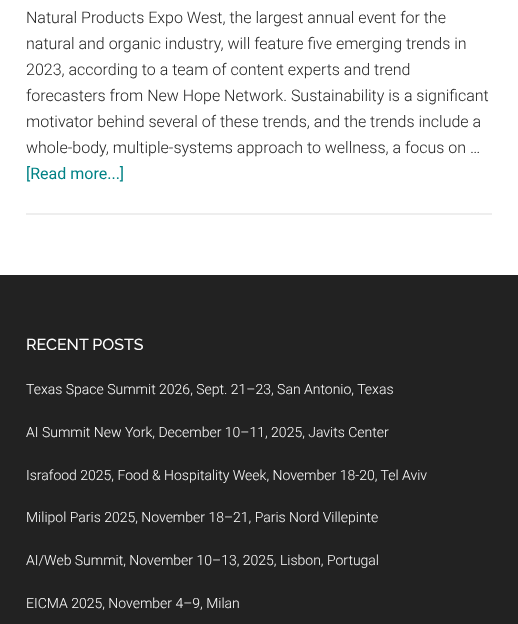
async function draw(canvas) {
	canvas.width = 518;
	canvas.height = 624;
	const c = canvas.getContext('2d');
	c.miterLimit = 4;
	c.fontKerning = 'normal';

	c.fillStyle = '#fff';
	c.fillRect(0, 0, 518, 624);
	c.fillStyle = '#eee';
	c.fillRect(26, 213, 466, 2);
	c.font = '300 16px Roboto';
	c.fillStyle = '#222';
	for (const [text, x, y] of [
		['Natural Products Expo West, the largest annual event for the', 26, 23],
		['natural and organic industry, will feature five emerging trends in', 26, 49],
		['2023, according to a team of content experts and trend', 26, 75],
		['forecasters from New Hope Network. Sustainability is a significant', 26, 101],
		['motivator behind several of these trends, and the trends include a', 26, 127],
		['whole-body, multiple-systems approach to wellness, a focus on …', 26, 153],
	]) {
		c.fillText(text, x, y);
	}
	c.font = '16px Roboto';
	c.fillStyle = '#008285';
	c.fillText('[Read more...]', 26, 179);
	c.fillStyle = '#222';
	c.fillRect(0, 275, 518, 349);
	c.font = '500 16px Raleway';
	c.fillStyle = '#fff';
	c.fillText('RECENT POSTS', 26, 350);
	c.font = '300 14px Roboto';
	for (const [text, x, y] of [
		['Texas Space Summit 2026, Sept. 21–23, San Antonio, Texas', 26, 394],
		['AI Summit New York, December 10–11, 2025, Javits Center', 26, 437],
		['Israfood 2025, Food & Hospitality Week, November 18-20, Tel Aviv', 26, 480],
		['Milipol Paris 2025, November 18–21, Paris Nord Villepinte', 26, 522],
		['AI/Web Summit, November 10–13, 2025, Lisbon, Portugal', 26, 565],
		['EICMA 2025, November 4–9, Milan', 26, 608],
	]) {
		c.fillText(text, x, y);
	}
}

draw(document.querySelector('canvas'));
